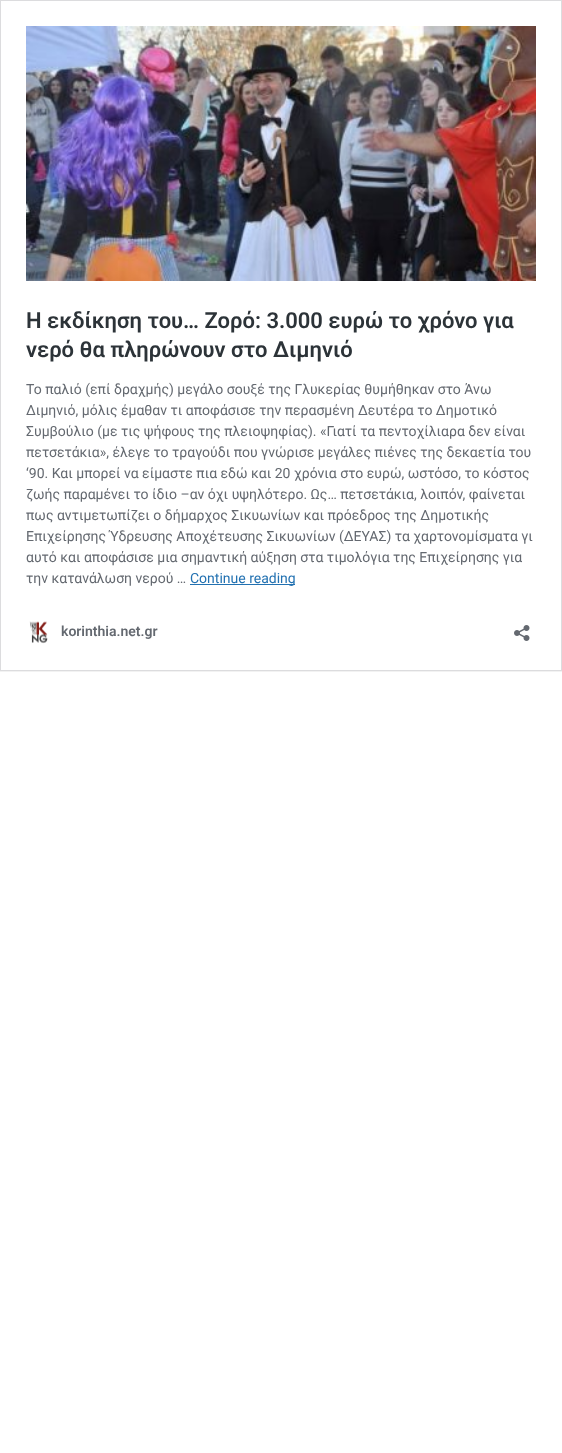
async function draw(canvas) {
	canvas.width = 562;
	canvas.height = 1453;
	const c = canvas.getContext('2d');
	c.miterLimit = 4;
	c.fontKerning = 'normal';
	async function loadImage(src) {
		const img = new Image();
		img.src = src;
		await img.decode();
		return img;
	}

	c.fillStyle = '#fff';
	c.fillRect(0, 0, 562, 1453);
	c.save();
	c.beginPath();
	c.rect(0, 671, 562, 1);
	c.clip();
	c.fillStyle = '#0000000d';
	c.filter = 'blur(0.5px)';
	c.beginPath();
	c.rect(0, 1, 562, 671);
	c.fill();
	c.filter = 'none';
	c.restore();
	c.strokeStyle = '#dcdcde';
	c.strokeRect(0.5, 0.5, 561, 670);
	c.drawImage(await loadImage('img1.png'), 26, 26, 510, 255);
	c.font = '600 22px Roboto';
	c.fillStyle = '#2c3338';
	c.fillText('Η εκδίκηση του… Ζορό: 3.000 ευρώ το χρόνο για', 26, 328);
	c.fillText('νερό θα πληρώνουν στο Διμηνιό', 26, 357);
	c.font = '14px Roboto';
	c.fillStyle = '#646970';
	for (const [text, x, y] of [
		['Το παλιό (επί δραχμής) μεγάλο σουξέ της Γλυκερίας θυμήθηκαν στο Άνω', 26, 394],
		['Διμηνιό, μόλις έμαθαν τι αποφάσισε την περασμένη Δευτέρα το Δημοτικό', 26, 415],
		['Συμβούλιο (με τις ψήφους της πλειοψηφίας). «Γιατί τα πεντοχίλιαρα δεν είναι', 26, 436],
		['πετσετάκια», έλεγε το τραγούδι που γνώρισε μεγάλες πιένες της δεκαετία του', 26, 457],
		['‘90. Και μπορεί να είμαστε πια εδώ και 20 χρόνια στο ευρώ, ωστόσο, το κόστος', 26, 478],
		['ζωής παραμένει το ίδιο –αν όχι υψηλότερο. Ως… πετσετάκια, λοιπόν, φαίνεται', 26, 499],
		['πως αντιμετωπίζει ο δήμαρχος Σικυωνίων και πρόεδρος της Δημοτικής', 26, 520],
		['Επιχείρησης Ύδρευσης Αποχέτευσης Σικυωνίων (ΔΕΥΑΣ) τα χαρτονομίσματα γι', 26, 541],
		['αυτό και αποφάσισε μια σημαντική αύξηση στα τιμολόγια της Επιχείρησης για', 26, 562],
		['την κατανάλωση νερού …', 26, 583],
	]) {
		c.fillText(text, x, y);
	}
	c.fillStyle = '#2271b1';
	c.fillRect(190, 584, 105, 1);
	c.fillText('Continue reading', 190, 583);
	c.drawImage(await loadImage('img2.png'), 29, 621, 19, 23);
	c.font = '600 14px Roboto';
	c.fillStyle = '#646970';
	c.fillText('korinthia.net.gr', 61, 636);
	c.drawImage(await loadImage('img3.png'), 514, 625, 16, 16);
}

draw(document.querySelector('canvas'));
